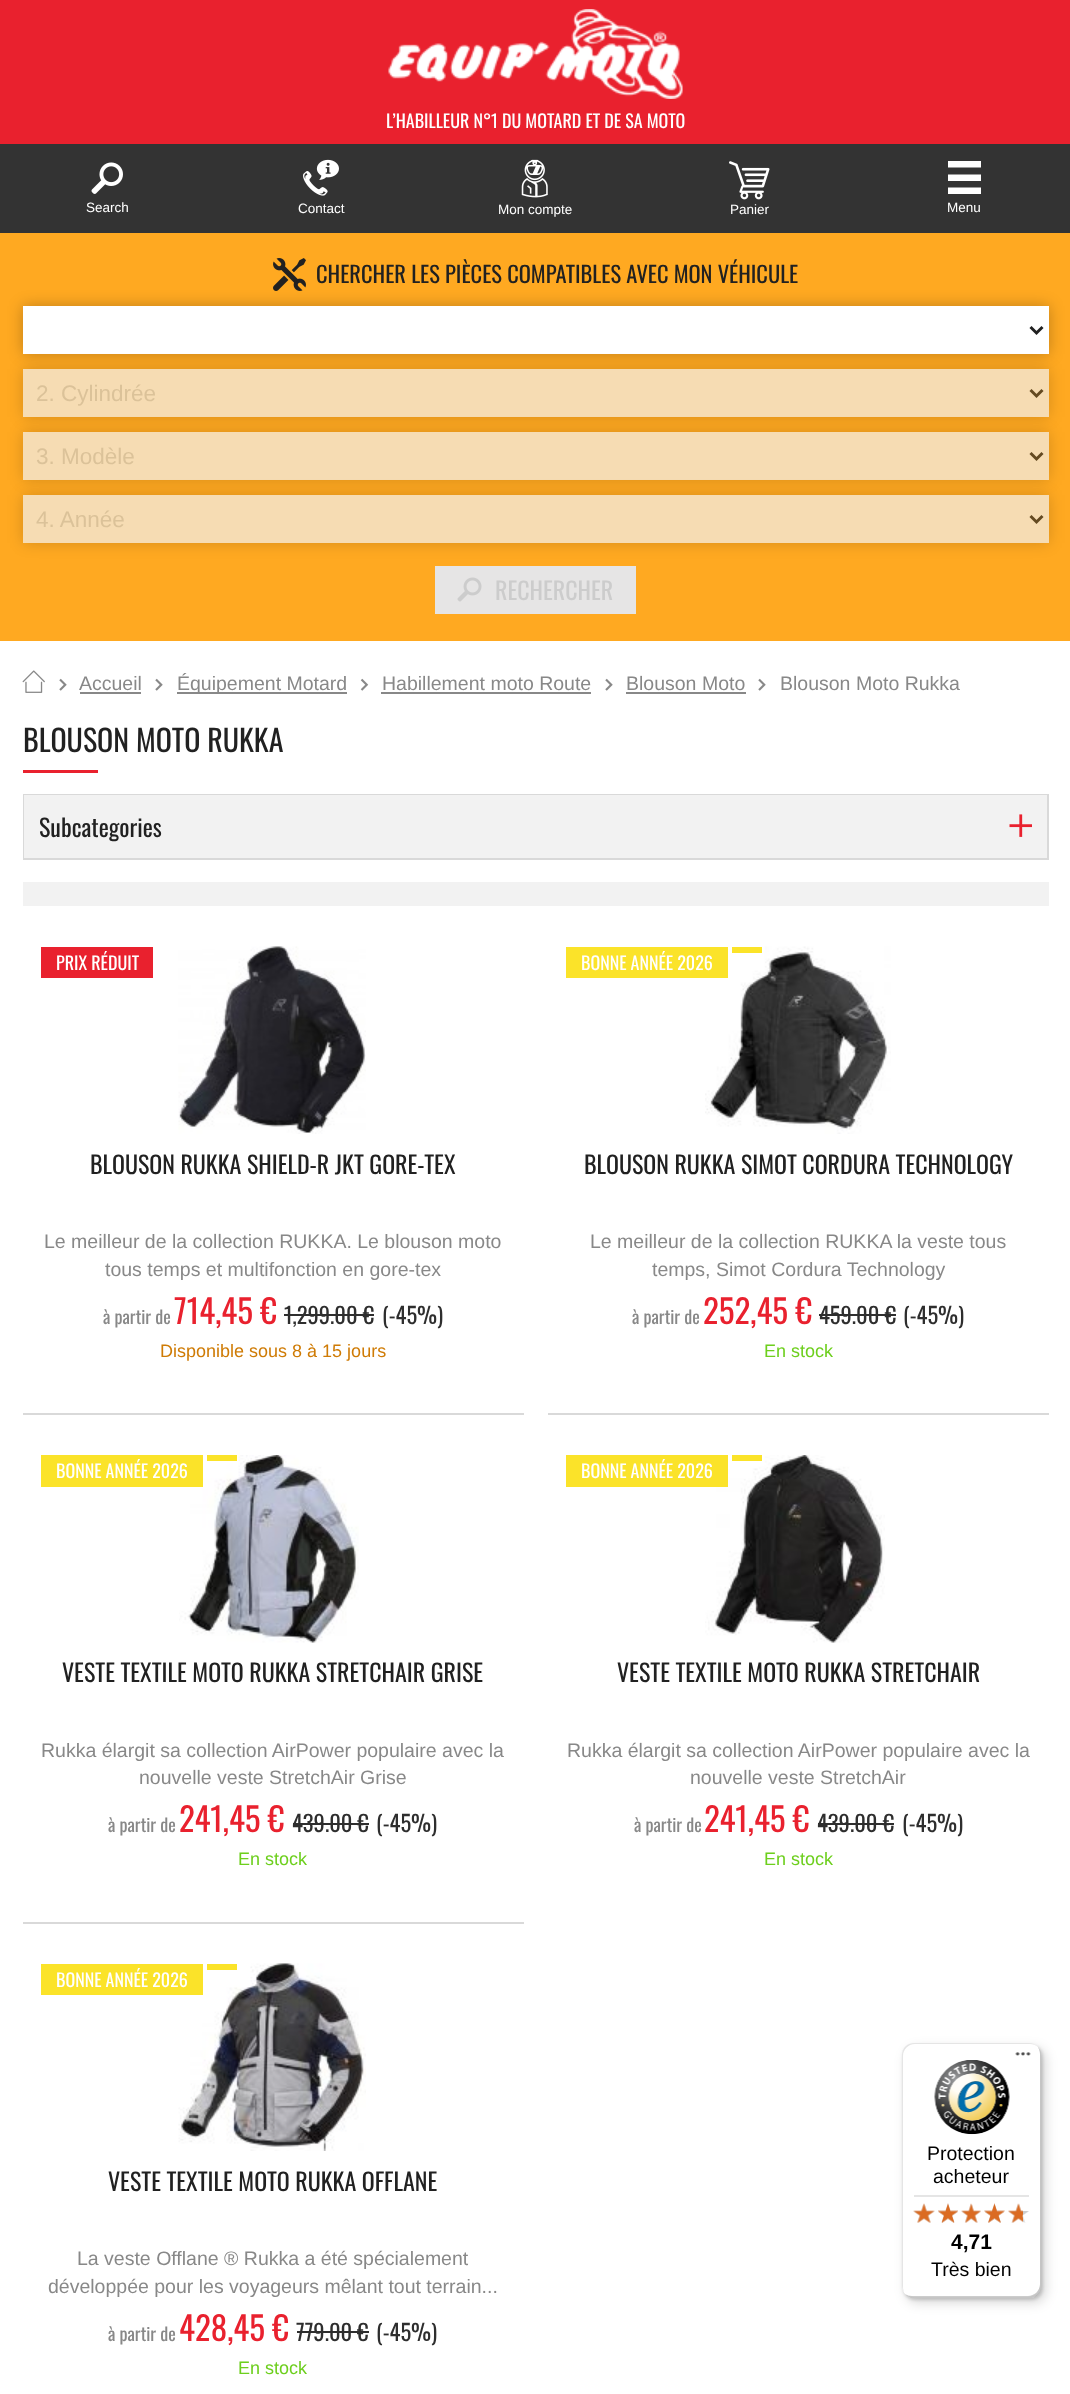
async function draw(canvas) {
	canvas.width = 1070;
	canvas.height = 2394;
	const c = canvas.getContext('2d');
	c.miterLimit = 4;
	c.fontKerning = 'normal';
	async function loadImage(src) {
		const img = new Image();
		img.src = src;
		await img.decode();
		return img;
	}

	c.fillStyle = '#fff';
	c.fillRect(0, 0, 1070, 2394);
	c.fillStyle = '#e9212e';
	c.fillRect(0, 0, 1070, 144);
	c.drawImage(await loadImage('img1.png'), 388, 9, 295, 90);
	c.font = '18px Oswald';
	c.fillStyle = '#fff';
	c.fillText('L’HABILLEUR N°1 DU MOTARD ET DE SA MOTO', 386, 128);
	c.fillStyle = '#333';
	c.fillRect(0, 144, 1070, 89);
	c.drawImage(await loadImage('img2.png'), 91, 162, 32, 32);
	c.font = '13.5px Liberation Sans';
	c.fillStyle = '#fff';
	c.fillText('Search', 86, 212);
	c.drawImage(await loadImage('img3.png'), 303, 159, 36, 37);
	c.fillText('Contact', 298, 213);
	c.drawImage(await loadImage('img4.png'), 521, 159, 27, 39);
	c.fillText('Mon compte', 498, 214);
	c.drawImage(await loadImage('img5.png'), 729, 161, 41, 39);
	c.fillText('Panier', 730, 214);
	c.beginPath();
	c.moveTo(948, 161);
	c.lineTo(981, 161);
	c.lineTo(981, 167.5);
	c.lineTo(948, 167.5);
	c.closePath();
	c.moveTo(948, 187.5);
	c.lineTo(981, 187.5);
	c.lineTo(981, 194);
	c.lineTo(948, 194);
	c.closePath();
	c.moveTo(948, 174.5);
	c.lineTo(981, 174.5);
	c.lineTo(981, 181);
	c.lineTo(948, 181);
	c.closePath();
	c.fill();
	c.fillText('Menu', 947, 212);
	c.fillStyle = '#ffa921';
	c.fillRect(0, 233, 1070, 408);
	c.drawImage(await loadImage('img6.png'), 273, 258, 33, 33);
	c.font = '22.5px Oswald';
	c.fillStyle = '#212121';
	c.fillText('CHERCHER LES PIÈCES COMPATIBLES AVEC MON VÉHICULE', 316, 283);
	c.fillStyle = '#00000040';
	c.filter = 'blur(7.5px)';
	c.beginPath();
	c.rect(23, 306, 1026, 48);
	c.fill();
	c.filter = 'none';
	c.fillStyle = '#fff';
	c.fillRect(23, 306, 1026, 48);
	c.beginPath();
	c.moveTo(1030.5, 327);
	c.lineTo(1036.5, 333);
	c.lineTo(1042.5, 327);
	c.strokeStyle = '#212121';
	c.lineWidth = 3;
	c.stroke();
	c.fillStyle = '#0000002b';
	c.filter = 'blur(7.5px)';
	c.beginPath();
	c.rect(23, 369, 1026, 48);
	c.fill();
	c.filter = 'none';
	c.fillStyle = '#f6dcb3';
	c.fillRect(23, 369, 1026, 48);
	c.beginPath();
	c.moveTo(1030.5, 390);
	c.lineTo(1036.5, 396);
	c.lineTo(1042.5, 390);
	c.strokeStyle = '#644a21';
	c.stroke();
	c.font = '22.5px Liberation Sans';
	c.fillStyle = '#dbc299';
	c.fillText('2. Cylindrée', 36, 401);
	c.fillStyle = '#0000002b';
	c.filter = 'blur(7.5px)';
	c.beginPath();
	c.rect(23, 432, 1026, 48);
	c.fill();
	c.filter = 'none';
	c.fillStyle = '#f6dcb3';
	c.fillRect(23, 432, 1026, 48);
	c.beginPath();
	c.moveTo(1030.5, 453);
	c.lineTo(1036.5, 459);
	c.lineTo(1042.5, 453);
	c.stroke();
	c.fillStyle = '#dbc299';
	c.fillText('3. Modèle', 36, 464);
	c.fillStyle = '#0000002b';
	c.filter = 'blur(7.5px)';
	c.beginPath();
	c.rect(23, 495, 1026, 48);
	c.fill();
	c.filter = 'none';
	c.fillStyle = '#f6dcb3';
	c.fillRect(23, 495, 1026, 48);
	c.beginPath();
	c.moveTo(1030.5, 516);
	c.lineTo(1036.5, 522);
	c.lineTo(1042.5, 516);
	c.stroke();
	c.fillStyle = '#dbc299';
	c.fillText('4. Année', 36, 527);
	c.fillStyle = '#e6e5e5';
	c.fillRect(435, 566, 201, 48);
	c.drawImage(await loadImage('img7.png'), 457, 577, 25, 25);
	c.font = '24px Oswald';
	c.fillStyle = '#ccc';
	c.fillText('RECHERCHER', 495, 600);
	c.drawImage(await loadImage('img8.png'), 22, 670, 23, 23);
	c.drawImage(await loadImage('img9.png'), 59, 678, 8, 13);
	c.font = '19.5px Liberation Sans';
	c.fillStyle = '#888';
	c.fillText('Accueil', 79, 690);
	c.fillRect(80, 692, 61, 2);
	c.drawImage(await loadImage('img9.png'), 155, 678, 8, 13);
	c.fillRect(177, 692, 170, 2);
	c.fillText('Équipement Motard', 177, 690);
	c.drawImage(await loadImage('img10.png'), 360, 678, 9, 13);
	c.fillText('Habillement moto Route', 382, 690);
	c.fillRect(381, 692, 210, 2);
	c.drawImage(await loadImage('img9.png'), 605, 678, 8, 13);
	c.fillText('Blouson Moto', 626, 690);
	c.fillRect(626, 692, 120, 2);
	c.drawImage(await loadImage('img9.png'), 758, 678, 8, 13);
	c.fillText('Blouson Moto Rukka', 780, 690);
	c.font = '30px Oswald';
	c.fillStyle = '#212121';
	c.fillText('BLOUSON MOTO RUKKA', 23, 752);
	for (const [x, y, w, h, color] of [
		[23, 770, 75, 3, '#e9212e'],
		[23, 794, 1026, 1, '#d9d9d9'],
		[1047, 794, 2, 66, '#d9d9d9'],
		[23, 794, 2, 66, '#d9d9d9'],
		[24, 795, 1023, 63, '#f2f2f2'],
		[24, 858, 1023, 2, '#d9d9d9'],
	]) {
		c.fillStyle = color;
		c.fillRect(x, y, w, h);
	}
	c.font = '24px Oswald';
	c.fillStyle = '#212121';
	c.fillText('Subcategories', 39, 837);
	c.drawImage(await loadImage('img11.png'), 1009, 814, 23, 23);
	for (const [x, y, w, h, color] of [
		[23, 882, 1026, 24, '#f2f2f2'],
		[23, 1413, 501, 2, '#d9d9d9'],
		[41, 947, 112, 31, '#e9212e'],
	]) {
		c.fillStyle = color;
		c.fillRect(x, y, w, h);
	}
	c.font = '18px Oswald';
	c.fillStyle = '#fff';
	c.fillText('PRIX RÉDUIT', 56, 970);
	c.drawImage(await loadImage('img12.png'), 178, 946, 188, 188);
	c.font = '24px Oswald';
	c.fillStyle = '#212121';
	c.fillText('BLOUSON RUKKA SHIELD-R JKT GORE-TEX', 90, 1174);
	c.font = '19.5px Liberation Sans';
	c.fillStyle = '#888';
	c.fillText('Le meilleur de la collection RUKKA. Le blouson moto', 44, 1248);
	c.fillText('tous temps et multifonction en gore-tex', 105, 1276);
	c.font = '18px Oswald';
	c.fillText('à partir de', 103, 1324);
	c.font = '33px Oswald';
	c.fillStyle = '#e9212e';
	c.fillText('714,45 €', 174, 1324);
	c.font = '22.5px Oswald';
	c.fillStyle = '#2e2e2e';
	c.fillText('1,299.00', 284, 1324);
	c.fillRect(284, 1314, 79, 2);
	c.fillText('€', 363, 1324);
	c.fillRect(363, 1314, 11, 2);
	c.fillText('(-45%)', 382, 1324);
	c.font = '18px Liberation Sans';
	c.fillStyle = '#cf7b05';
	c.fillText('Disponible sous 8 à 15 jours', 160, 1357);
	c.fillStyle = '#d9d9d9';
	c.fillRect(548, 1413, 501, 2);
	c.drawImage(await loadImage('img13.png'), 705, 946, 186, 188);
	c.fillStyle = '#fbe329';
	c.fillRect(732, 947, 30, 6);
	c.fillRect(566, 947, 162, 31);
	c.font = '18px Oswald';
	c.fillStyle = '#fff';
	c.fillText('BONNE ANNÉE 2026', 581, 970);
	c.font = '24px Oswald';
	c.fillStyle = '#212121';
	c.fillText('BLOUSON RUKKA SIMOT CORDURA TECHNOLOGY', 584, 1174);
	c.font = '19.5px Liberation Sans';
	c.fillStyle = '#888';
	c.fillText('Le meilleur de la collection RUKKA la veste tous', 590, 1248);
	c.fillText('temps, Simot Cordura Technology', 652, 1276);
	c.font = '18px Oswald';
	c.fillText('à partir de', 632, 1324);
	c.font = '33px Oswald';
	c.fillStyle = '#e9212e';
	c.fillText('252,45 €', 703, 1324);
	c.font = '22.5px Oswald';
	c.fillStyle = '#2e2e2e';
	c.fillText('459.00', 819, 1324);
	c.fillRect(819, 1314, 66, 2);
	c.fillText('€', 885, 1324);
	c.fillRect(885, 1314, 11, 2);
	c.fillText('(-45%)', 903, 1324);
	c.font = '18px Liberation Sans';
	c.fillStyle = '#6dcf1d';
	c.fillText('En stock', 764, 1357);
	c.fillStyle = '#d9d9d9';
	c.fillRect(23, 1922, 501, 2);
	c.drawImage(await loadImage('img14.png'), 179, 1455, 180, 188);
	c.fillStyle = '#fbe329';
	c.fillRect(207, 1455, 30, 6);
	c.fillRect(41, 1455, 162, 32);
	c.font = '18px Oswald';
	c.fillStyle = '#fff';
	c.fillText('BONNE ANNÉE 2026', 56, 1478);
	c.font = '24px Oswald';
	c.fillStyle = '#212121';
	c.fillText('VESTE TEXTILE MOTO RUKKA STRETCHAIR GRISE', 62, 1682);
	c.font = '19.5px Liberation Sans';
	c.fillStyle = '#888';
	c.fillText('Rukka élargit sa collection AirPower populaire avec la', 41, 1757);
	c.fillText('nouvelle veste StretchAir Grise', 139, 1784);
	c.font = '18px Oswald';
	c.fillText('à partir de', 108, 1832);
	c.font = '33px Oswald';
	c.fillStyle = '#e9212e';
	c.fillText('241,45 €', 179, 1832);
	c.font = '22.5px Oswald';
	c.fillStyle = '#2e2e2e';
	c.fillText('439.00 €', 292, 1832);
	c.fillRect(293, 1823, 76, 2);
	c.fillText('(-45%)', 376, 1832);
	c.font = '18px Liberation Sans';
	c.fillStyle = '#6dcf1d';
	c.fillText('En stock', 238, 1865);
	c.drawImage(await loadImage('img15.png'), 705, 1455, 180, 188);
	c.fillStyle = '#fbe329';
	c.fillRect(732, 1455, 30, 6);
	c.fillRect(566, 1455, 162, 32);
	c.font = '18px Oswald';
	c.fillStyle = '#fff';
	c.fillText('BONNE ANNÉE 2026', 581, 1478);
	c.font = '24px Oswald';
	c.fillStyle = '#212121';
	c.fillText('VESTE TEXTILE MOTO RUKKA STRETCHAIR', 617, 1682);
	c.font = '19.5px Liberation Sans';
	c.fillStyle = '#888';
	c.fillText('Rukka élargit sa collection AirPower populaire avec la', 567, 1757);
	c.fillText('nouvelle veste StretchAir', 690, 1784);
	c.font = '18px Oswald';
	c.fillText('à partir de', 634, 1832);
	c.font = '33px Oswald';
	c.fillStyle = '#e9212e';
	c.fillText('241,45 €', 704, 1832);
	c.font = '22.5px Oswald';
	c.fillStyle = '#2e2e2e';
	c.fillText('439.00', 817, 1832);
	c.fillRect(818, 1823, 66, 2);
	c.fillText('€', 883, 1832);
	c.fillRect(884, 1823, 10, 2);
	c.fillText('(-45%)', 902, 1832);
	c.font = '18px Liberation Sans';
	c.fillStyle = '#6dcf1d';
	c.fillText('En stock', 764, 1865);
	c.drawImage(await loadImage('img16.png'), 178, 1963, 188, 188);
	c.fillStyle = '#fbe329';
	c.fillRect(207, 1964, 30, 6);
	c.fillRect(41, 1964, 162, 31);
	c.font = '18px Oswald';
	c.fillStyle = '#fff';
	c.fillText('BONNE ANNÉE 2026', 56, 1987);
	c.font = '24px Oswald';
	c.fillStyle = '#212121';
	c.fillText('VESTE TEXTILE MOTO RUKKA OFFLANE', 108, 2191);
	c.font = '19.5px Liberation Sans';
	c.fillStyle = '#888';
	c.fillText('La veste Offlane ® Rukka a été spécialement', 77, 2265);
	c.fillText('développée pour les voyageurs mêlant tout terrain...', 48, 2293);
	c.font = '18px Oswald';
	c.fillText('à partir de', 108, 2341);
	c.font = '33px Oswald';
	c.fillStyle = '#e9212e';
	c.fillText('428,45 €', 179, 2341);
	c.font = '22.5px Oswald';
	c.fillStyle = '#2e2e2e';
	c.fillText('779.00 €', 296, 2341);
	c.fillRect(297, 2331, 72, 2);
	c.fillText('(-45%)', 376, 2341);
	c.font = '18px Liberation Sans';
	c.fillStyle = '#6dcf1d';
	c.fillText('En stock', 238, 2374);
	c.fillStyle = '#00000026';
	c.filter = 'blur(6px)';
	c.beginPath();
	c.roundRect(906, 2048, 140, 255, 12);
	c.fill();
	c.filter = 'none';
	c.filter = 'blur(1.5px)';
	c.beginPath();
	c.roundRect(903, 2045, 140, 255, 12);
	c.fill();
	c.filter = 'none';
	c.fillStyle = '#fff';
	c.beginPath();
	c.roundRect(902, 2043, 139, 255, 12);
	c.fill();
	c.fillStyle = '#e5e5e5';
	c.beginPath();
	c.moveTo(915, 2044);
	c.lineTo(1030, 2044);
	c.bezierCurveTo(1033, 2044, 1036, 2045, 1038, 2047);
	c.bezierCurveTo(1036, 2045, 1033, 2043, 1029, 2043);
	c.lineTo(914, 2043);
	c.bezierCurveTo(907, 2043, 902, 2048, 902, 2055);
	c.lineTo(902, 2286);
	c.bezierCurveTo(902, 2288, 903, 2291, 904, 2293);
	c.lineTo(903, 2288);
	c.lineTo(903, 2056);
	c.bezierCurveTo(903, 2050, 908, 2044, 915, 2044);
	c.closePath();
	c.fill();
	c.fillStyle = '#00000033';
	c.beginPath();
	c.moveTo(905, 2294);
	c.bezierCurveTo(907, 2296, 910, 2298, 914, 2298);
	c.lineTo(1029, 2298);
	c.bezierCurveTo(1036, 2298, 1041, 2293, 1041, 2286);
	c.lineTo(1041, 2055);
	c.bezierCurveTo(1041, 2051, 1039, 2048, 1037, 2046);
	c.bezierCurveTo(1039, 2048, 1040, 2051, 1040, 2054);
	c.lineTo(1040, 2284);
	c.bezierCurveTo(1040, 2291, 1034, 2296, 1028, 2296);
	c.lineTo(912, 2296);
	c.bezierCurveTo(909, 2296, 907, 2295, 905, 2294);
	c.closePath();
	c.fill();
	c.fillStyle = '#32323233';
	c.beginPath();
	c.moveTo(906, 2295);
	c.bezierCurveTo(908, 2297, 911, 2298, 914, 2298);
	c.lineTo(1029, 2298);
	c.bezierCurveTo(1036, 2298, 1041, 2293, 1041, 2286);
	c.lineTo(1041, 2055);
	c.bezierCurveTo(1041, 2052, 1040, 2049, 1038, 2047);
	c.bezierCurveTo(1039, 2049, 1040, 2051, 1040, 2054);
	c.lineTo(1040, 2285);
	c.bezierCurveTo(1040, 2292, 1035, 2297, 1028, 2297);
	c.lineTo(913, 2297);
	c.bezierCurveTo(910, 2297, 908, 2296, 906, 2295);
	c.closePath();
	c.fill();
	c.fillStyle = '#ffffff4d';
	c.beginPath();
	c.moveTo(906, 2295);
	c.bezierCurveTo(908, 2297, 911, 2298, 914, 2298);
	c.lineTo(1029, 2298);
	c.bezierCurveTo(1036, 2298, 1041, 2293, 1041, 2286);
	c.lineTo(1041, 2055);
	c.bezierCurveTo(1041, 2051, 1039, 2048, 1037, 2046);
	c.bezierCurveTo(1039, 2048, 1040, 2051, 1040, 2054);
	c.lineTo(1040, 2285);
	c.bezierCurveTo(1040, 2292, 1035, 2297, 1028, 2297);
	c.lineTo(913, 2297);
	c.bezierCurveTo(910, 2297, 908, 2296, 906, 2295);
	c.closePath();
	c.fill();
	c.drawImage(await loadImage('img17.png'), 1015, 2052, 16, 4);
	c.drawImage(await loadImage('img18.png'), 934, 2060, 76, 75);
	c.font = '19.5px Liberation Sans';
	c.fillStyle = '#000';
	c.fillText('Protection', 927, 2160);
	c.fillText('acheteur', 933, 2183);
	c.fillStyle = '#e5e5e5';
	c.fillRect(914, 2195, 115, 2);
	c.drawImage(await loadImage('img19.png'), 913, 2204, 22, 19);
	c.drawImage(await loadImage('img20.png'), 938, 2203, 20, 20);
	c.drawImage(await loadImage('img21.png'), 961, 2204, 20, 19);
	c.drawImage(await loadImage('img22.png'), 984, 2203, 21, 20);
	c.drawImage(await loadImage('img23.png'), 1008, 2204, 21, 19);
	c.drawImage(await loadImage('img24.png'), 913, 2203, 22, 20);
	c.drawImage(await loadImage('img25.png'), 938, 2203, 20, 20);
	c.drawImage(await loadImage('img26.png'), 961, 2203, 20, 20);
	c.drawImage(await loadImage('img27.png'), 984, 2203, 21, 20);
	c.drawImage(await loadImage('img28.png'), 1008, 2203, 15, 20);
	c.font = 'bold 21px Liberation Sans';
	c.fillStyle = '#000';
	c.fillText('4,71', 951, 2249);
	c.font = '19.5px Liberation Sans';
	c.fillText('Très bien', 931, 2276);
}

draw(document.querySelector('canvas'));
